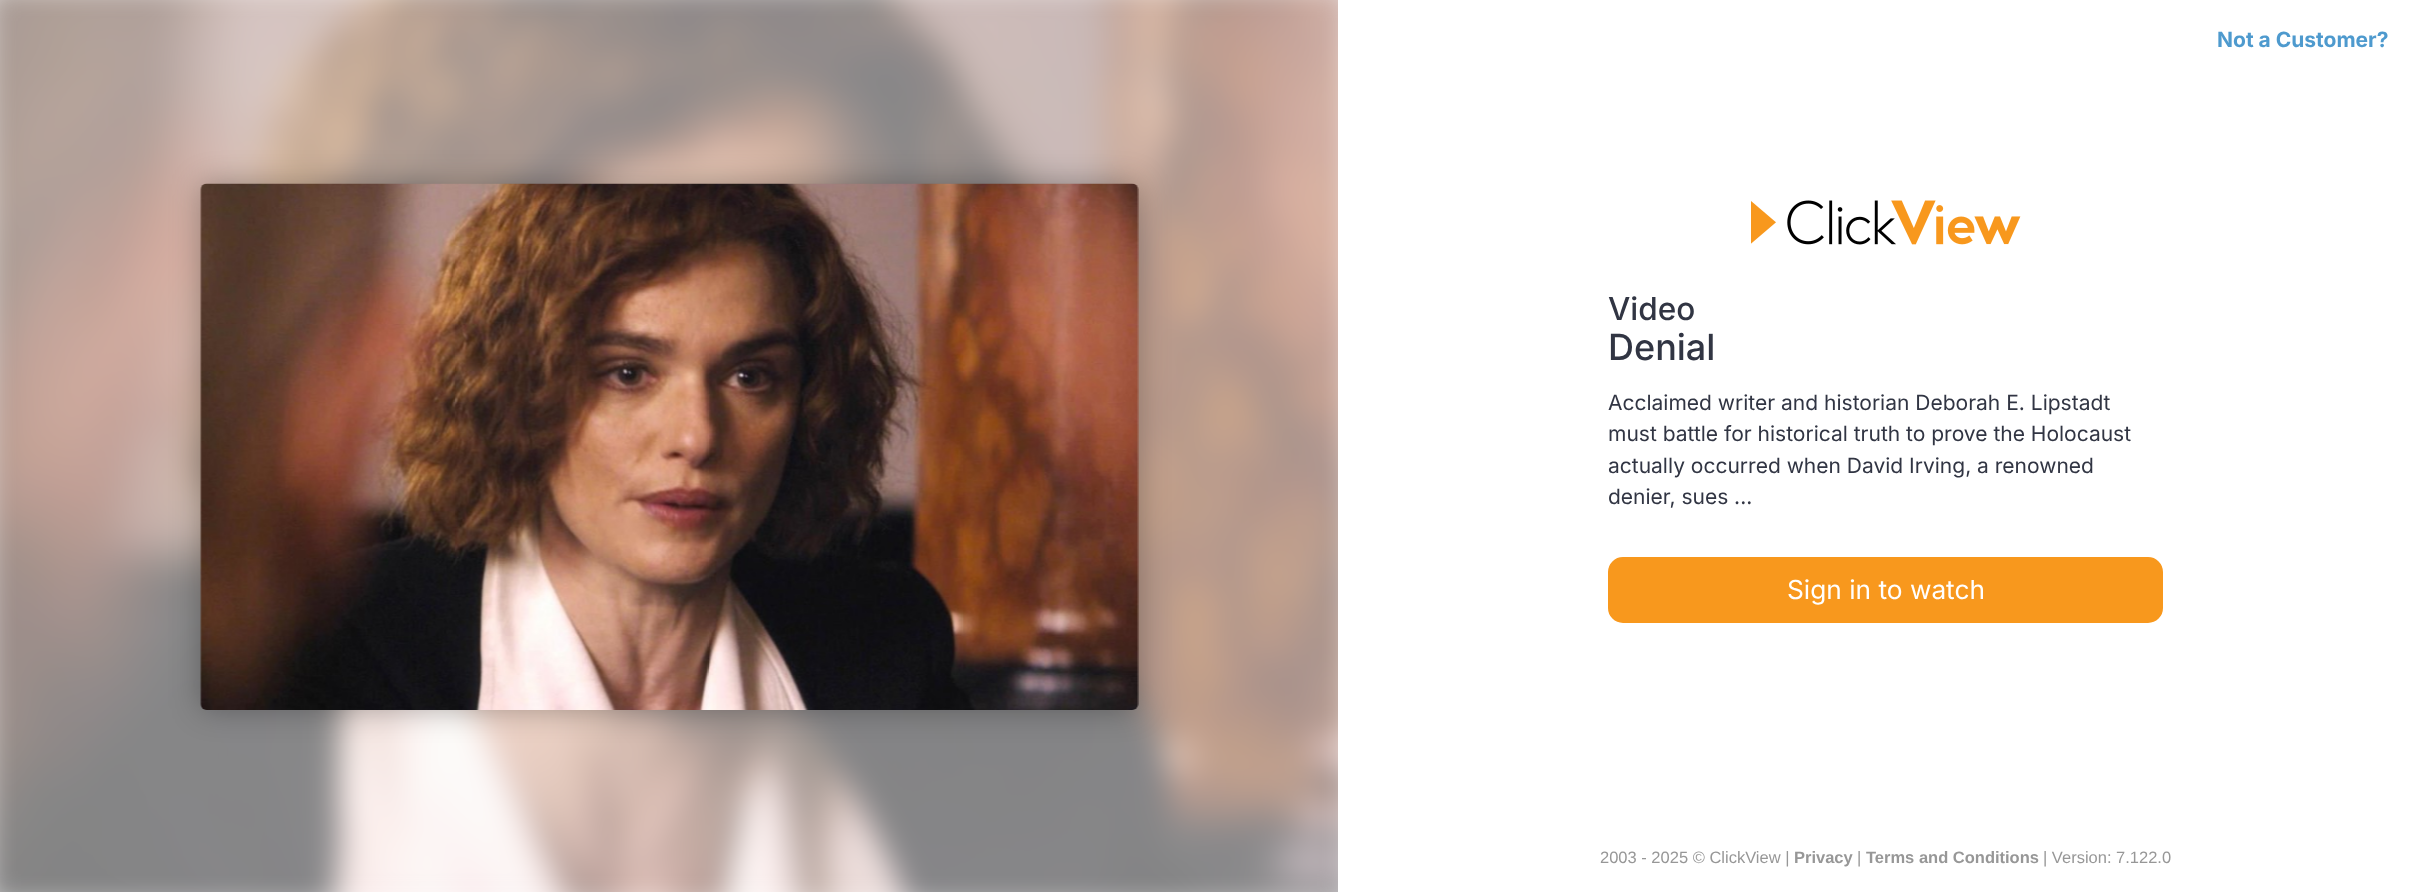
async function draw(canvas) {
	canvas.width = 2432;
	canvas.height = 892;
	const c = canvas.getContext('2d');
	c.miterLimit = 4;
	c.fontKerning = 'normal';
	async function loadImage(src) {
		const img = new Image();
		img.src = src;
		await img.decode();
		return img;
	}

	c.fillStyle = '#fafafa';
	c.fillRect(0, 0, 2432, 892);
	c.drawImage(await loadImage('img1.png'), 0, 0, 1338, 892);
	c.fillStyle = '#0000004d';
	c.filter = 'blur(15px)';
	c.beginPath();
	c.roundRect(201, 183, 938, 527, 6);
	c.fill();
	c.filter = 'none';
	c.drawImage(await loadImage('img2.png'), 200, 183, 939, 527);
	c.fillStyle = '#fff';
	c.fillRect(1338, 0, 1094, 892);
	c.font = 'bold 21px Inter';
	c.fillStyle = '#4e9ace';
	c.fillText('Not a Customer?', 2217, 47);
	c.drawImage(await loadImage('img3.png'), 1751, 200, 270, 45);
	c.font = '500 31.5px Inter';
	c.fillStyle = '#313543';
	c.fillText('Video', 1608, 320);
	c.font = '500 36px Inter';
	c.fillText('Denial', 1608, 360);
	c.font = '21px Inter';
	for (const [text, x, y] of [
		['Acclaimed writer and historian Deborah E. Lipstadt', 1608, 410],
		['must battle for historical truth to prove the Holocaust', 1608, 441],
		['actually occurred when David Irving, a renowned', 1608, 473],
		['denier, sues ...', 1608, 504],
	]) {
		c.fillText(text, x, y);
	}
	c.fillStyle = '#f8981d';
	c.beginPath();
	c.roundRect(1609, 558, 553, 64, 14);
	c.fill();
	c.strokeStyle = '#f8981d';
	c.lineWidth = 2;
	c.stroke();
	c.font = '26.25px Inter';
	c.fillStyle = '#fff';
	c.fillText('Sign in to watch', 1787, 599);
	c.font = '16.5px Liberation Sans';
	c.fillStyle = '#979797';
	c.fillText('2003 - 2025 © ClickView |', 1600, 863);
	c.font = 'bold 16.5px Liberation Sans';
	c.fillText('Privacy', 1794, 863);
	c.font = '16.5px Liberation Sans';
	c.fillText('|', 1857, 863);
	c.font = 'bold 16.5px Liberation Sans';
	c.fillText('Terms and Conditions', 1866, 863);
	c.font = '16.5px Liberation Sans';
	c.fillText('| Version: 7.122.0', 2043, 863);
}

draw(document.querySelector('canvas'));
